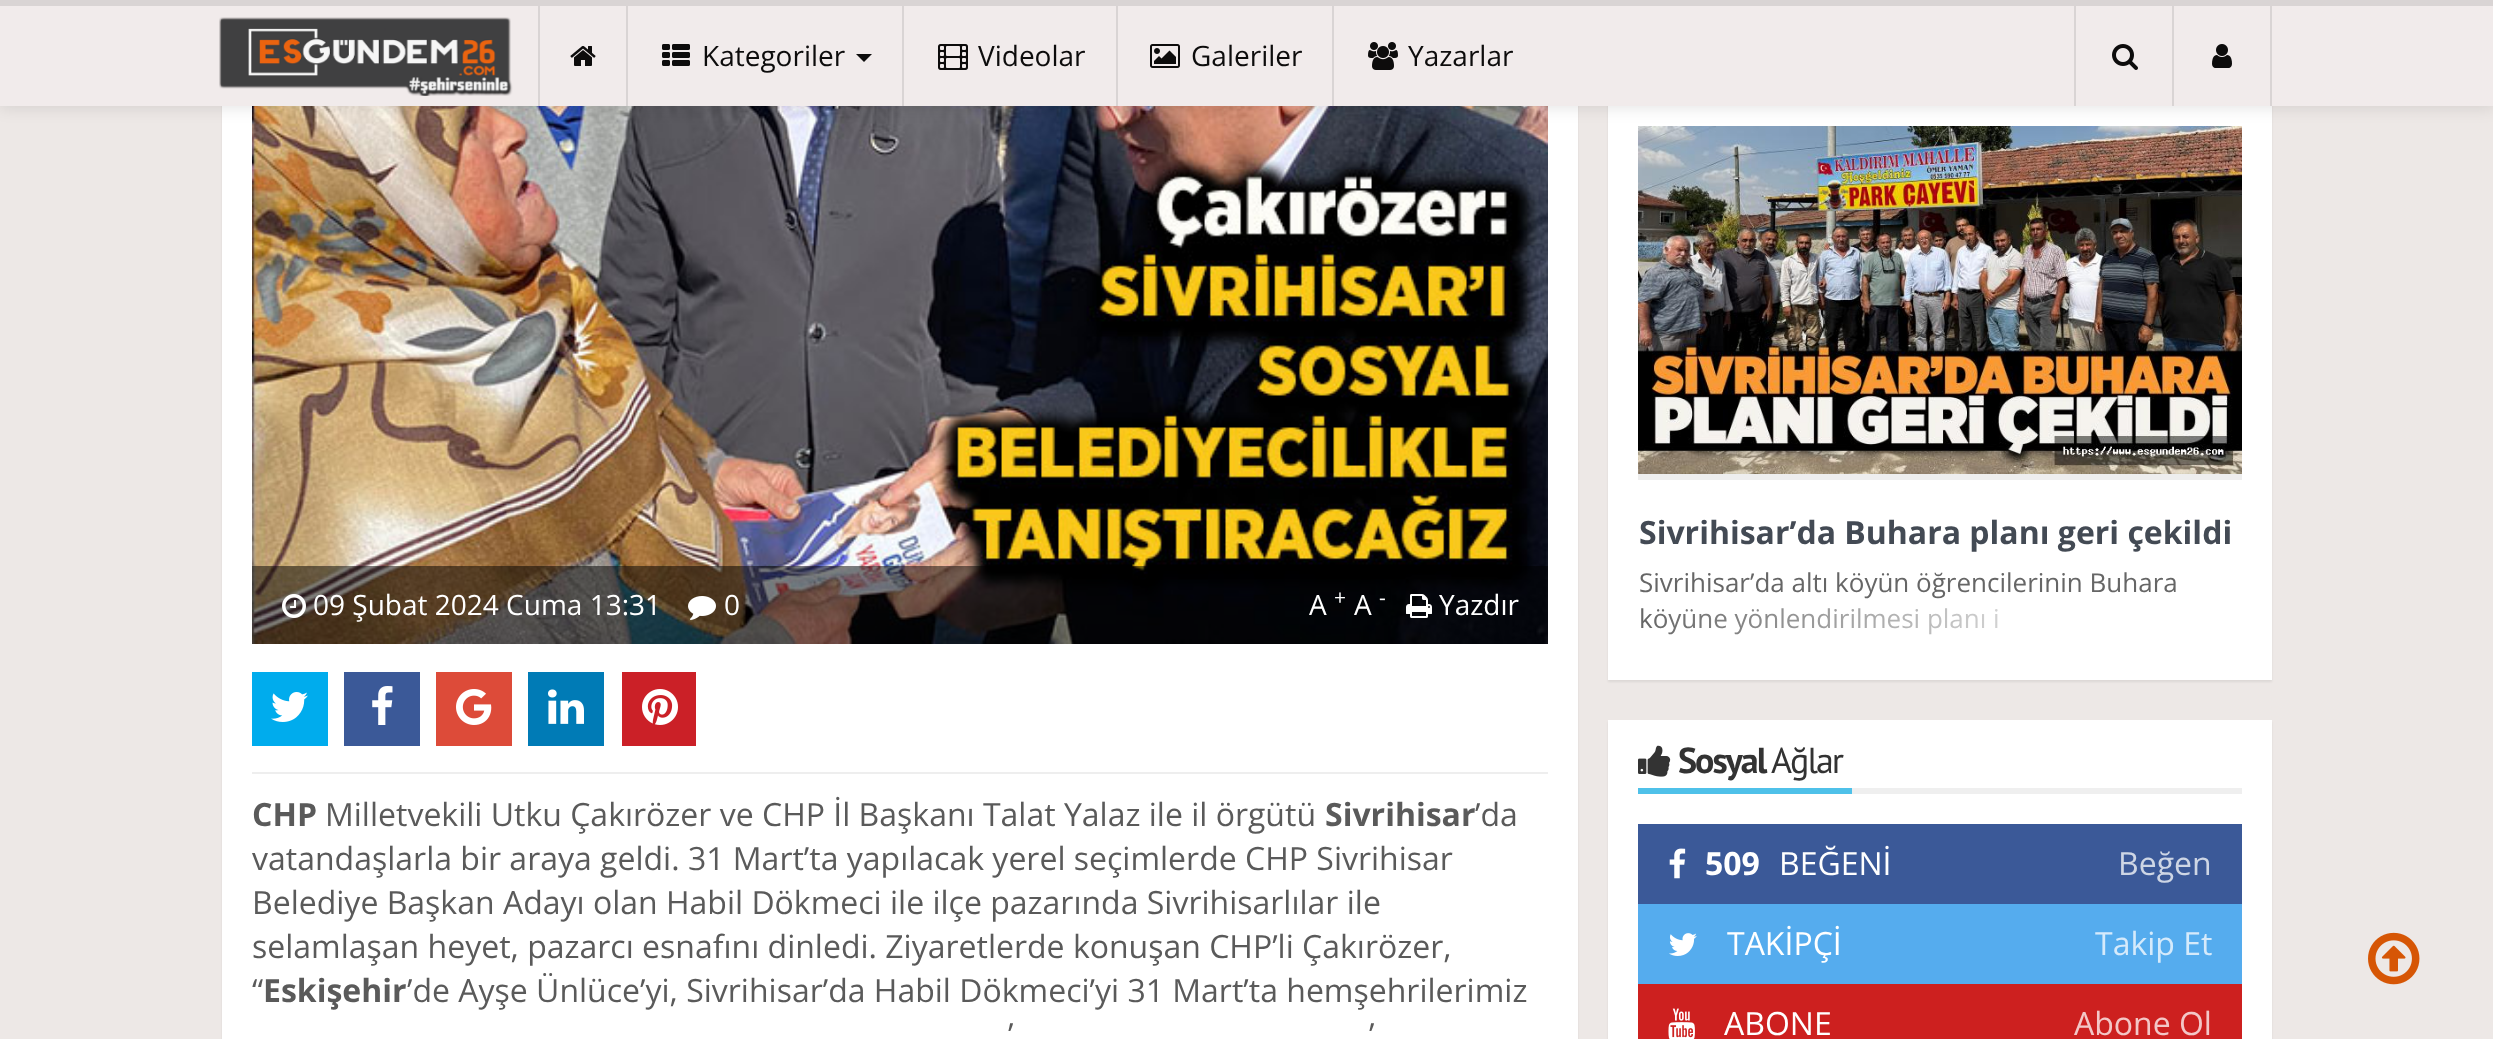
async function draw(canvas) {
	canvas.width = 2493;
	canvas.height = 1039;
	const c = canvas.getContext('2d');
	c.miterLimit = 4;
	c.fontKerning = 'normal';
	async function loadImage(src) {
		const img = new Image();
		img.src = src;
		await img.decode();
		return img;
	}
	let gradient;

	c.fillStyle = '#ede8e6';
	c.fillRect(0, 0, 2493, 1039);
	c.fillStyle = '#00000012';
	c.filter = 'blur(1px)';
	c.beginPath();
	c.rect(222, -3, 1356, 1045);
	c.fill();
	c.filter = 'none';
	c.fillStyle = '#fff';
	c.fillRect(222, 106, 1356, 933);
	c.drawImage(await loadImage('img9.png'), 252, 106, 1296, 538);
	c.fillStyle = '#00000012';
	c.filter = 'blur(1px)';
	c.beginPath();
	c.rect(1608, 24, 664, 658);
	c.fill();
	c.filter = 'none';
	c.fillStyle = '#fff';
	c.fillRect(1608, 106, 664, 574);
	c.drawImage(await loadImage('img18.png'), 1638, 126, 604, 348);
	c.fillStyle = '#0000001a';
	c.filter = 'blur(8px)';
	c.beginPath();
	c.rect(0, 2, 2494, 106);
	c.fill();
	c.filter = 'none';
	c.fillStyle = '#f1ebeb';
	c.fillRect(0, 6, 2493, 100);
	c.fillStyle = '#d9d4d4';
	c.fillRect(0, 0, 2493, 6);
	c.drawImage(await loadImage('img1.png'), 219, 17, 294, 79);
	c.fillRect(538, 6, 2, 100);
	c.drawImage(await loadImage('img2.png'), 570, 46, 26, 20);
	c.fillRect(626, 6, 2, 100);
	c.drawImage(await loadImage('img3.png'), 662, 44, 28, 22);
	c.font = '28px Open Sans';
	c.fillStyle = '#0d0c0c';
	c.fillText('Kategoriler', 702, 66);
	c.beginPath();
	c.moveTo(856, 54);
	c.lineTo(872, 54);
	c.lineTo(864, 62);
	c.closePath();
	c.fill();
	c.fillStyle = '#d9d4d4';
	c.fillRect(902, 6, 2, 100);
	c.drawImage(await loadImage('img4.png'), 938, 44, 30, 26);
	c.fillStyle = '#0d0c0c';
	c.fillText('Videolar', 978, 66);
	c.fillStyle = '#d9d4d4';
	c.fillRect(1116, 6, 2, 100);
	c.drawImage(await loadImage('img5.png'), 1150, 44, 30, 24);
	c.fillStyle = '#0d0c0c';
	c.fillText('Galeriler', 1191, 66);
	c.fillStyle = '#d9d4d4';
	c.fillRect(1332, 6, 2, 100);
	c.drawImage(await loadImage('img6.png'), 1368, 42, 30, 28);
	c.fillStyle = '#0d0c0c';
	c.fillText('Yazarlar', 1408, 66);
	c.fillStyle = '#d9d4d4';
	c.fillRect(2074, 6, 2, 100);
	c.drawImage(await loadImage('img7.png'), 2112, 44, 26, 26);
	c.fillRect(2270, 6, 2, 100);
	c.fillRect(2172, 6, 2, 100);
	c.drawImage(await loadImage('img8.png'), 2212, 44, 20, 24);
	c.fillStyle = '#00000080';
	c.fillRect(252, 566, 1296, 78);
	c.drawImage(await loadImage('img10.png'), 282, 594, 24, 24);
	c.fillStyle = '#fff';
	c.fillText('09 Şubat 2024 Cuma 13:31', 313, 615);
	c.drawImage(await loadImage('img11.png'), 688, 596, 28, 24);
	c.fillText('0', 724, 615);
	c.fillText('A', 1309, 615);
	c.font = '21px Open Sans';
	c.fillText('+', 1334, 605);
	c.font = '28px Open Sans';
	c.fillText('A', 1354, 615);
	c.font = '21px Open Sans';
	c.fillText('-', 1379, 605);
	c.drawImage(await loadImage('img12.png'), 1406, 594, 26, 24);
	c.font = '28px Open Sans';
	c.fillText('Yazdır', 1439, 615);
	c.fillStyle = '#00aced';
	c.fillRect(252, 672, 76, 74);
	c.drawImage(await loadImage('img13.png'), 271, 692, 37, 30);
	c.fillStyle = '#3b5998';
	c.fillRect(344, 672, 76, 74);
	c.drawImage(await loadImage('img14.png'), 372, 686, 21, 39);
	c.fillStyle = '#dd4b39';
	c.fillRect(436, 672, 76, 74);
	c.drawImage(await loadImage('img15.png'), 456, 689, 36, 36);
	c.fillStyle = '#007bb6';
	c.fillRect(528, 672, 76, 74);
	c.drawImage(await loadImage('img16.png'), 548, 689, 36, 35);
	c.fillStyle = '#cb2027';
	c.fillRect(622, 672, 74, 74);
	c.drawImage(await loadImage('img17.png'), 642, 689, 36, 36);
	c.fillStyle = '#eee';
	c.fillRect(252, 772, 1296, 2);
	c.font = 'bold 32px Open Sans';
	c.fillStyle = '#5a5a5a';
	c.fillText('CHP', 252, 826);
	c.font = '32px Open Sans';
	c.fillText('Milletvekili Utku Çakırözer ve CHP İl Başkanı Talat Yalaz ile il örgütü', 325, 826);
	c.font = 'bold 32px Open Sans';
	c.fillText('Sivrihisar', 1325, 826);
	c.font = '32px Open Sans';
	for (const [text, x, y] of [
		['’da', 1475, 826],
		['vatandaşlarla bir araya geldi. 31 Mart’ta yapılacak yerel seçimlerde CHP Sivrihisar', 252, 870],
		['Belediye Başkan Adayı olan Habil Dökmeci ile ilçe pazarında Sivrihisarlılar ile', 252, 914],
		['selamlaşan heyet, pazarcı esnafını dinledi. Ziyaretlerde konuşan CHP’li Çakırözer,', 252, 958],
		['“', 252, 1002],
	]) {
		c.fillText(text, x, y);
	}
	c.font = 'bold 32px Open Sans';
	c.fillText('Eskişehir', 263, 1002);
	c.font = '32px Open Sans';
	for (const [text, x, y] of [
		['’de Ayşe Ünlüce’yi, Sivrihisar’da Habil Dökmeci’yi 31 Mart’ta hemşehrilerimiz', 407, 1002],
		['’', 1008, 1046],
		['’', 1369, 1046],
	]) {
		c.fillText(text, x, y);
	}
	c.fillStyle = '#eee';
	c.fillRect(1638, 474, 604, 6);
	c.font = 'bold 32px Open Sans';
	c.fillStyle = '#434a54';
	c.fillText('Sivrihisar’da Buhara planı geri çekildi', 1639, 544);
	c.font = '26px Open Sans';
	c.fillStyle = '#666';
	c.fillText('Sivrihisar’da altı köyün öğrencilerinin Buhara', 1639, 592);
	c.fillText('köyüne yönlendirilmesi planı i', 1639, 628);
	gradient = c.createLinearGradient(1638, 622, 2242, 622);
	gradient.addColorStop(0, '#ffffff00');
	gradient.addColorStop(0.85, '#fff');
	gradient.addColorStop(1, '#fff');
	c.fillStyle = gradient;
	c.fillRect(1649, 608, 349, 27);
	c.fillStyle = '#00000012';
	c.filter = 'blur(1px)';
	c.beginPath();
	c.rect(1608, 722, 664, 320);
	c.fill();
	c.filter = 'none';
	for (const [x, y, w, h, color] of [
		[1608, 720, 664, 319, '#fff'],
		[1852, 788, 390, 6, '#efefef'],
		[1638, 788, 214, 6, '#4fc1e9'],
	]) {
		c.fillStyle = color;
		c.fillRect(x, y, w, h);
	}
	c.drawImage(await loadImage('img19.png'), 1638, 745, 33, 32);
	c.letterSpacing = '-2px';
	c.font = 'bold 36px PT Sans';
	c.fillStyle = '#333';
	c.fillText('Sosyal', 1678, 773);
	c.font = '36px PT Sans';
	c.fillText('Ağlar', 1771, 773);
	c.fillStyle = '#3b5998';
	c.fillRect(1638, 824, 604, 80);
	c.drawImage(await loadImage('img20.png'), 1669, 848, 17, 31);
	c.letterSpacing = '0px';
	c.font = 'bold 32px Open Sans';
	c.fillStyle = '#fff';
	c.fillText('509', 1705, 875);
	c.font = '32px Open Sans';
	c.fillText('BEĞENİ', 1779, 875);
	c.fillStyle = '#ced6e5';
	c.fillText('Beğen', 2118, 875);
	c.fillStyle = '#55acee';
	c.fillRect(1638, 904, 604, 80);
	c.drawImage(await loadImage('img21.png'), 1669, 933, 28, 23);
	c.fillStyle = '#fff';
	c.fillText('TAKİPÇİ', 1727, 955);
	c.fillStyle = '#d5eafb';
	c.fillText('Takip Et', 2095, 955);
	c.fillStyle = '#cd201f';
	c.fillRect(1638, 984, 604, 55);
	c.drawImage(await loadImage('img22.png'), 1668, 1008, 27, 31);
	c.fillStyle = '#fff';
	c.fillText('ABONE', 1724, 1035);
	c.fillStyle = '#f3c7c7';
	c.fillText('Abone Ol', 2074, 1035);
	c.drawImage(await loadImage('img23.png'), 2368, 932, 52, 53);
}

draw(document.querySelector('canvas'));
